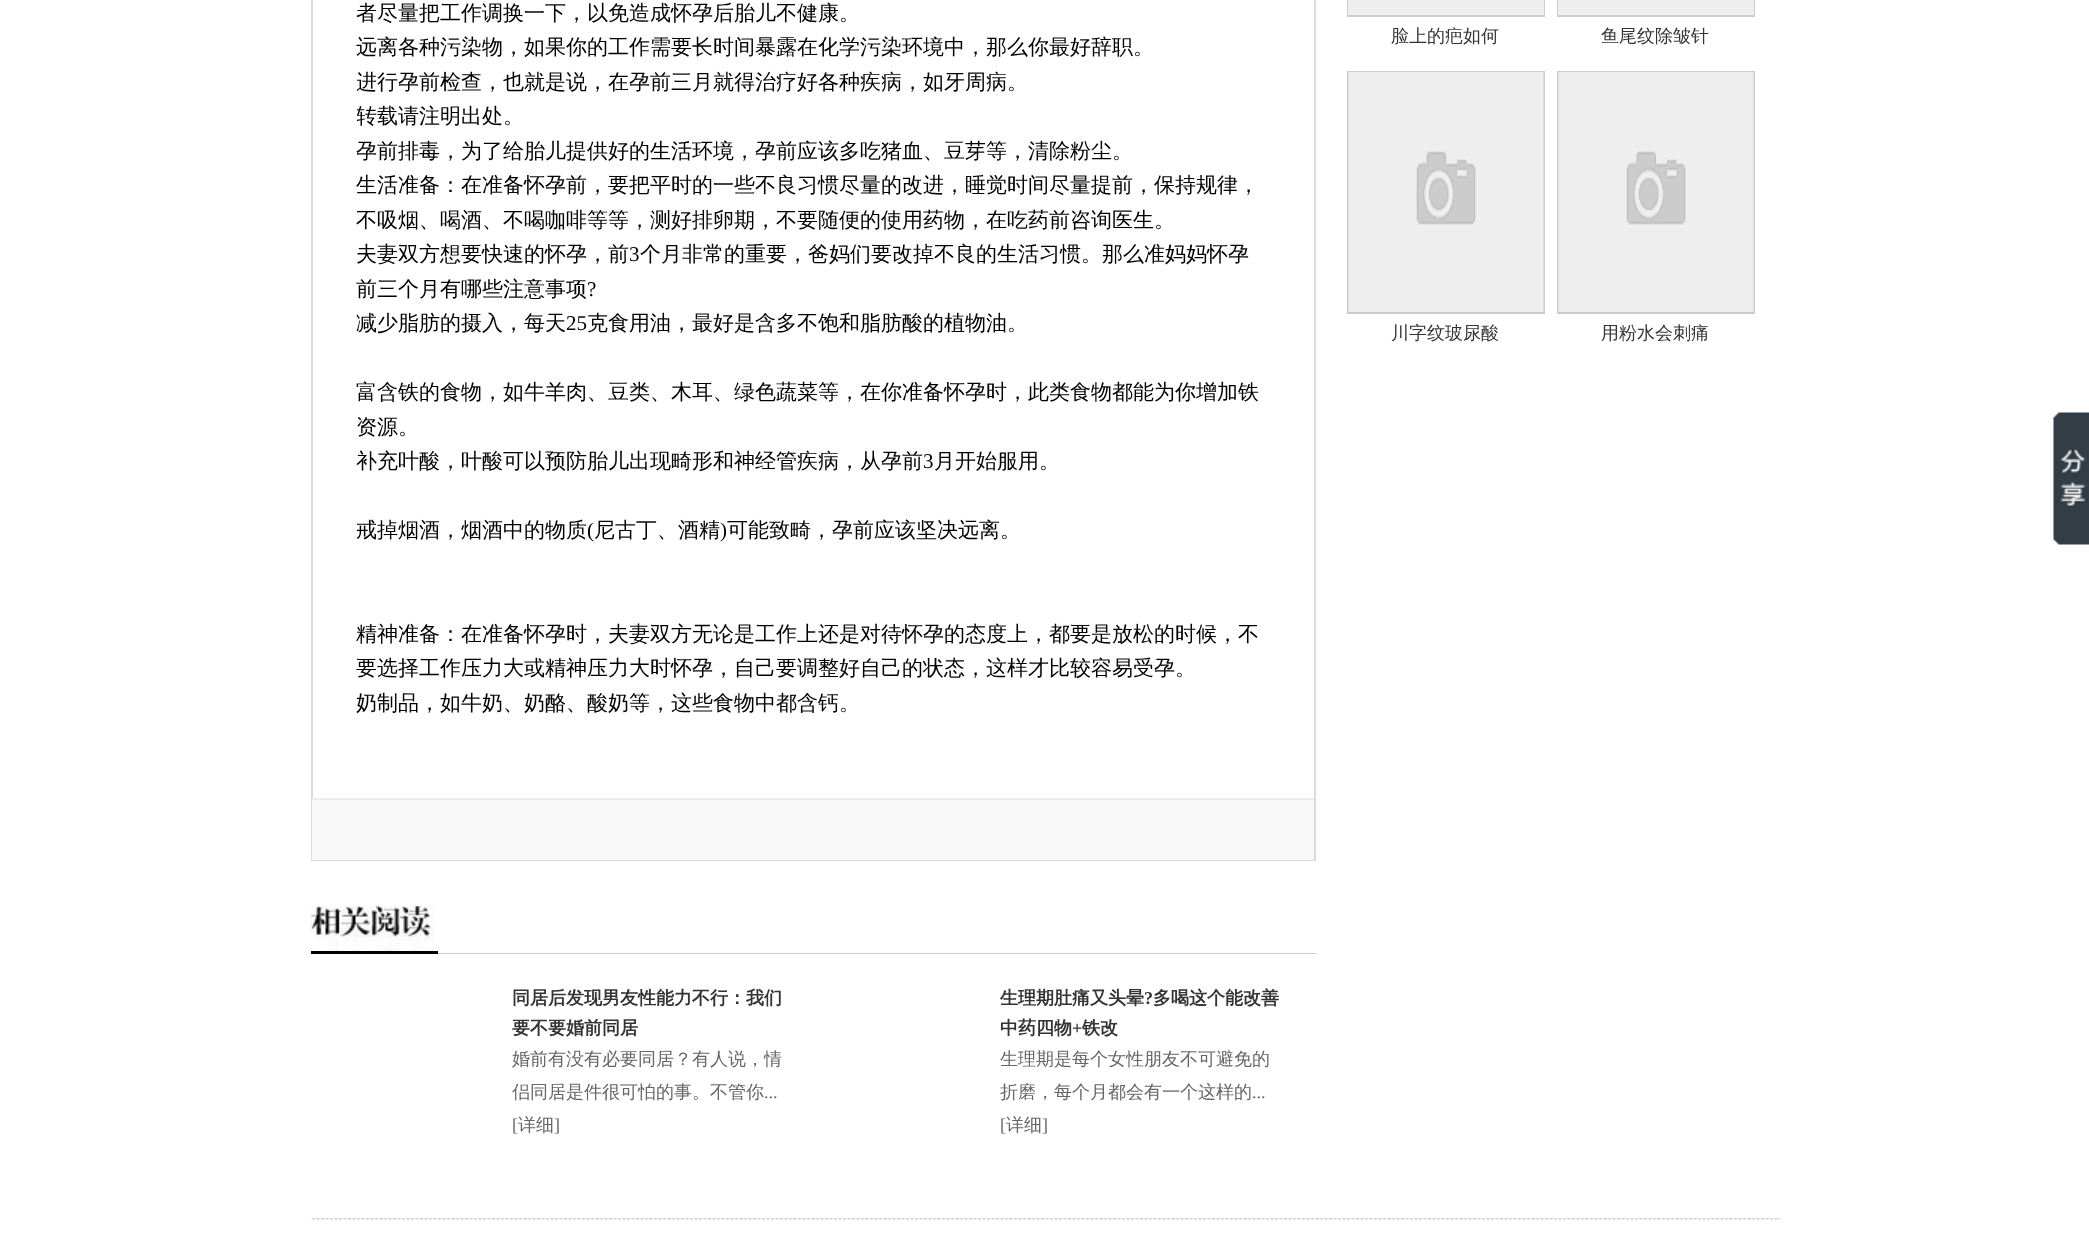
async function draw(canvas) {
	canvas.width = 2089;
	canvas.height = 1245;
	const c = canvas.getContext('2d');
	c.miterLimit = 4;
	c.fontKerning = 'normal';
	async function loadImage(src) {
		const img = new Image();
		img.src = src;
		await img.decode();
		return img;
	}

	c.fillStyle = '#fff';
	c.fillRect(0, 0, 2089, 1245);
	c.strokeStyle = '#dbdbdb';
	c.lineWidth = 2;
	c.strokeRect(312, -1, 1003, 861);
	c.font = '500 21px WenQuanYi Zen Hei';
	c.fillStyle = '#000';
	c.fillText('者尽量把工作调换一下，以免造成怀孕后胎儿不健康。', 356, 20);
	c.fillText('远离各种污染物，如果你的工作需要长时间暴露在化学污染环境中，那么你最好辞职。', 356, 54);
	c.save();
	c.beginPath();
	c.rect(357, 0, 912, 735);
	c.clip();
	c.fillText('进行孕前检查，也就是说，在孕前三月就得治疗好各种疾病，如牙周病。', 356, 89);
	c.fillText('转载请注明出处。', 356, 123);
	c.restore();
	for (const [text, x, y] of [
		['孕前排毒，为了给胎儿提供好的生活环境，孕前应该多吃猪血、豆芽等，清除粉尘。', 356, 158],
		['生活准备：在准备怀孕前，要把平时的一些不良习惯尽量的改进，睡觉时间尽量提前，保持规律，', 356, 192],
		['不吸烟、喝酒、不喝咖啡等等，测好排卵期，不要随便的使用药物，在吃药前咨询医生。', 356, 227],
		['夫妻双方想要快速的怀孕，前', 356, 261],
	]) {
		c.fillText(text, x, y);
	}
	c.font = '21px Liberation Serif';
	c.fillText('3', 629, 261);
	c.font = '500 21px WenQuanYi Zen Hei';
	c.fillText('个月非常的重要，爸妈们要改掉不良的生活习惯。那么准妈妈怀孕', 640, 261);
	c.fillText('前三个月有哪些注意事项', 356, 296);
	c.font = '21px Liberation Serif';
	c.fillText('?', 587, 296);
	c.font = '500 21px WenQuanYi Zen Hei';
	c.fillText('减少脂肪的摄入，每天', 356, 330);
	c.font = '21px Liberation Serif';
	c.fillText('25', 566, 330);
	c.font = '500 21px WenQuanYi Zen Hei';
	for (const [text, x, y] of [
		['克食用油，最好是含多不饱和脂肪酸的植物油。', 587, 330],
		['富含铁的食物，如牛羊肉、豆类、木耳、绿色蔬菜等，在你准备怀孕时，此类食物都能为你增加铁', 356, 399],
		['资源。', 356, 434],
		['补充叶酸，叶酸可以预防胎儿出现畸形和神经管疾病，从孕前', 356, 468],
	]) {
		c.fillText(text, x, y);
	}
	c.font = '21px Liberation Serif';
	c.fillText('3', 923, 468);
	c.font = '500 21px WenQuanYi Zen Hei';
	c.fillText('月开始服用。', 934, 468);
	c.fillText('戒掉烟酒，烟酒中的物质', 356, 537);
	c.font = '21px Liberation Serif';
	c.fillText('(', 587, 537);
	c.font = '500 21px WenQuanYi Zen Hei';
	c.fillText('尼古丁、酒精', 594, 537);
	c.font = '21px Liberation Serif';
	c.fillText(')', 720, 537);
	c.font = '500 21px WenQuanYi Zen Hei';
	for (const [text, x, y] of [
		['可能致畸，孕前应该坚决远离。', 727, 537],
		['精神准备：在准备怀孕时，夫妻双方无论是工作上还是对待怀孕的态度上，都要是放松的时候，不', 356, 641],
		['要选择工作压力大或精神压力大时怀孕，自己要调整好自己的状态，这样才比较容易受孕。', 356, 675],
		['奶制品，如牛奶、奶酪、酸奶等，这些食物中都含钙。', 356, 710],
	]) {
		c.fillText(text, x, y);
	}
	c.fillStyle = '#f8f8f8';
	c.fillRect(312, 800, 1002, 60);
	c.fillStyle = '#ebebeb';
	c.fillRect(312, 798, 1002, 2);
	c.drawImage(await loadImage('img1.png'), 310, 906, 125, 48);
	c.fillStyle = '#000';
	c.fillRect(311, 951, 127, 3);
	c.fillStyle = '#c9c9c9';
	c.fillRect(438, 953, 878, 1);
	c.font = 'bold 18px WenQuanYi Zen Hei';
	c.fillStyle = '#333';
	c.fillText('同居后发现男友性能力不行：我们', 512, 1004);
	c.fillText('要不要婚前同居', 512, 1034);
	c.font = '500 18px WenQuanYi Zen Hei';
	c.fillStyle = '#666';
	c.fillText('婚前有没有必要同居？有人说，情', 512, 1065);
	c.fillText('侣同居是件很可怕的事。不管你', 512, 1098);
	c.font = '18px Liberation Serif';
	c.fillText('...', 764, 1098);
	c.fillText('[', 512, 1131);
	c.font = '500 18px WenQuanYi Zen Hei';
	c.fillText('详细', 518, 1131);
	c.font = '18px Liberation Serif';
	c.fillText(']', 554, 1131);
	c.font = 'bold 18px WenQuanYi Zen Hei';
	c.fillStyle = '#333';
	c.fillText('生理期肚痛又头晕', 1000, 1004);
	c.font = 'bold 18px Liberation Serif';
	c.fillText('?', 1144, 1004);
	c.font = 'bold 18px WenQuanYi Zen Hei';
	c.fillText('多喝这个能改善', 1153, 1004);
	c.fillText('中药四物', 1000, 1034);
	c.font = 'bold 18px Liberation Serif';
	c.fillText('+', 1072, 1034);
	c.font = 'bold 18px WenQuanYi Zen Hei';
	c.fillText('铁改', 1082, 1034);
	c.font = '500 18px WenQuanYi Zen Hei';
	c.fillStyle = '#666';
	c.fillText('生理期是每个女性朋友不可避免的', 1000, 1065);
	c.fillText('折磨，每个月都会有一个这样的', 1000, 1098);
	c.font = '18px Liberation Serif';
	c.fillText('...', 1252, 1098);
	c.fillText('[', 1000, 1131);
	c.font = '500 18px WenQuanYi Zen Hei';
	c.fillText('详细', 1006, 1131);
	c.font = '18px Liberation Serif';
	c.fillText(']', 1042, 1131);
	c.strokeStyle = '#ccc';
	c.strokeRect(1348, -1, 196, 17);
	c.fillStyle = '#eee';
	c.fillRect(1348, 0, 196, 15);
	c.font = '500 18px WenQuanYi Zen Hei';
	c.fillStyle = '#333';
	c.fillText('脸上的疤如何', 1391, 42);
	c.strokeRect(1558, -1, 196, 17);
	c.fillStyle = '#eee';
	c.fillRect(1558, 0, 196, 15);
	c.fillStyle = '#333';
	c.fillText('鱼尾纹除皱针', 1601, 42);
	c.strokeRect(1348, 72, 196, 241);
	c.drawImage(await loadImage('img2.png'), 1348, 72, 196, 240);
	c.fillText('川字纹玻尿酸', 1391, 339);
	c.strokeRect(1558, 72, 196, 241);
	c.drawImage(await loadImage('img3.png'), 1558, 72, 196, 240);
	c.fillText('用粉水会刺痛', 1601, 339);
	c.drawImage(await loadImage('img4.png'), 2053, 412, 36, 133);
	c.drawImage(await loadImage('img5.png'), 310, 1218, 1471, 2);
}

draw(document.querySelector('canvas'));
